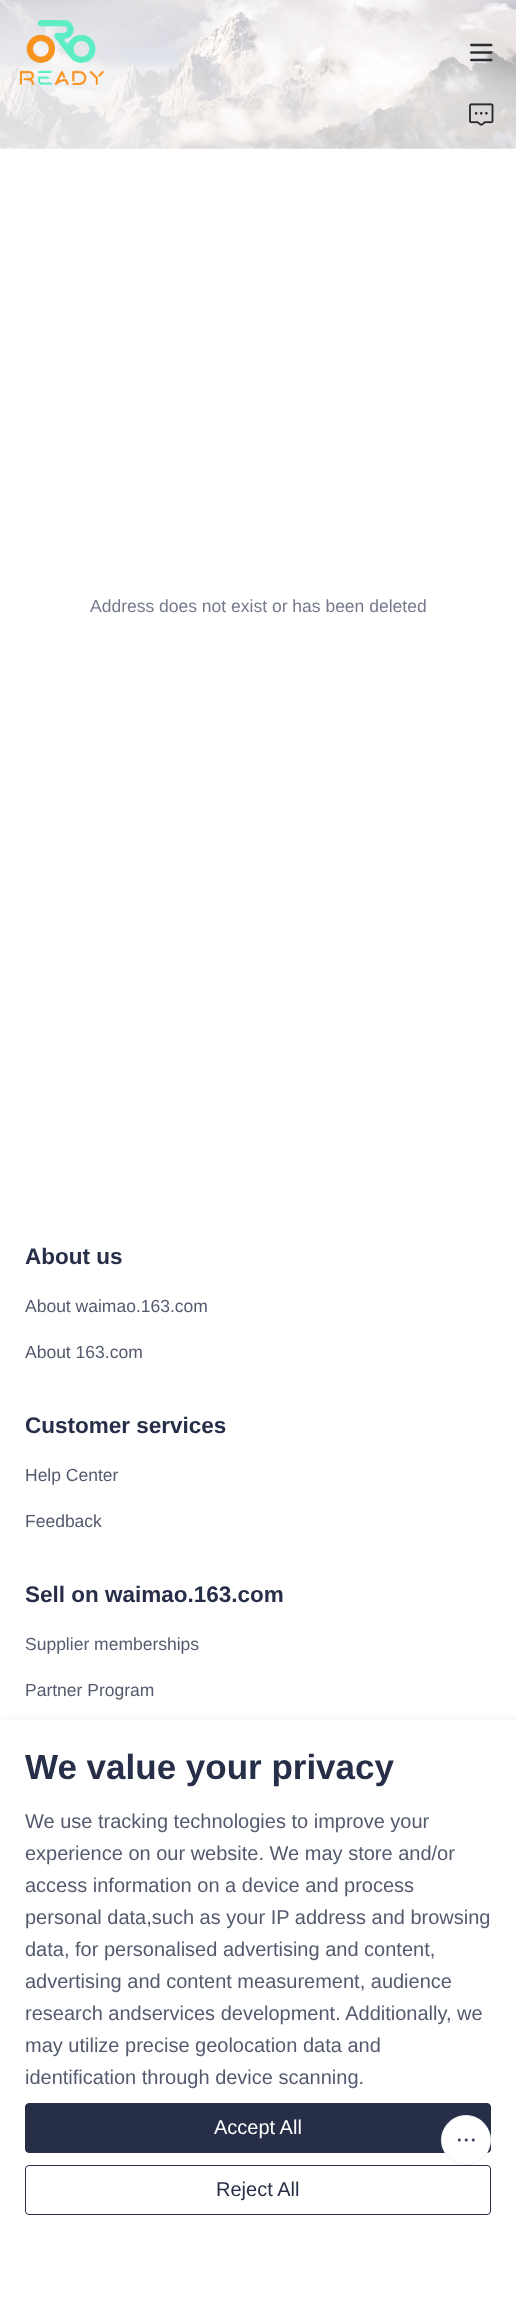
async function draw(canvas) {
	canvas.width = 516;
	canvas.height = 2314;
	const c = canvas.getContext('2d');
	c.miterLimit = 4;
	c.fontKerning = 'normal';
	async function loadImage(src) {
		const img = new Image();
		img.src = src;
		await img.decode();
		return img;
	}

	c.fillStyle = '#fff';
	c.fillRect(0, 0, 516, 2314);
	c.drawImage(await loadImage('img1.png'), 0, 0, 516, 149);
	c.drawImage(await loadImage('img2.png'), 20, 20, 84, 65);
	c.drawImage(await loadImage('img3.png'), 470, 43, 23, 19);
	c.drawImage(await loadImage('img4.png'), 469, 103, 25, 23);
	c.font = '17.5px Liberation Sans';
	c.fillStyle = '#747a8c';
	c.fillText('Address does not exist or has been deleted', 90, 612);
	c.font = 'bold 22.5px Liberation Sans';
	c.fillStyle = '#272e47';
	c.fillText('About us', 25, 1264);
	c.font = '17.5px Liberation Sans';
	c.fillStyle = '#545a6e';
	c.fillText('About waimao.163.com', 25, 1312);
	c.fillText('About 163.com', 25, 1358);
	c.font = 'bold 22.5px Liberation Sans';
	c.fillStyle = '#272e47';
	c.fillText('Customer services', 25, 1433);
	c.font = '17.5px Liberation Sans';
	c.fillStyle = '#545a6e';
	c.fillText('Help Center', 25, 1481);
	c.fillText('Feedback', 25, 1527);
	c.font = 'bold 22.5px Liberation Sans';
	c.fillStyle = '#272e47';
	c.fillText('Sell on waimao.163.com', 25, 1602);
	c.font = '17.5px Liberation Sans';
	c.fillStyle = '#545a6e';
	c.fillText('Supplier memberships', 25, 1650);
	c.fillText('Partner Program', 25, 1696);
	c.fillStyle = '#2f53861a';
	c.filter = 'blur(6px)';
	c.beginPath();
	c.rect(5, 1720, 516, 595);
	c.fill();
	c.filter = 'none';
	c.fillStyle = '#fff';
	c.fillRect(0, 1720, 516, 594);
	c.font = 'bold 35px Liberation Sans';
	c.fillStyle = '#272e47';
	c.fillText('We value your privacy', 25, 1779);
	c.font = '20px Liberation Sans';
	c.fillStyle = '#545a6e';
	for (const [text, x, y] of [
		['We use tracking technologies to improve your', 25, 1828],
		['experience on our website. We may store and/or', 25, 1860],
		['access information on a device and process', 25, 1892],
		['personal data,such as your IP address and browsing', 25, 1924],
		['data, for personalised advertising and content,', 25, 1956],
		['advertising and content measurement, audience', 25, 1988],
		['research andservices development. Additionally, we', 25, 2020],
		['may utilize precise geolocation data and', 25, 2052],
		['identification through device scanning.', 25, 2084],
	]) {
		c.fillText(text, x, y);
	}
	c.fillStyle = '#272e47';
	c.beginPath();
	c.roundRect(25.5, 2103.5, 465, 49, 3.5);
	c.fill();
	c.strokeStyle = '#272e47';
	c.stroke();
	c.fillStyle = '#fff';
	c.fillText('Accept All', 214, 2134);
	c.beginPath();
	c.roundRect(25.5, 2165.5, 465, 49, 3.5);
	c.stroke();
	c.fillStyle = '#272e47';
	c.fillText('Reject All', 216, 2196);
	c.fillStyle = '#fff';
	c.beginPath();
	c.arc(466, 2140, 24.5, 0, 2 * Math.PI);
	c.fill();
	c.strokeStyle = '#f0f1f5';
	c.stroke();
	c.drawImage(await loadImage('img5.png'), 458, 2138, 17, 4);
}

draw(document.querySelector('canvas'));
